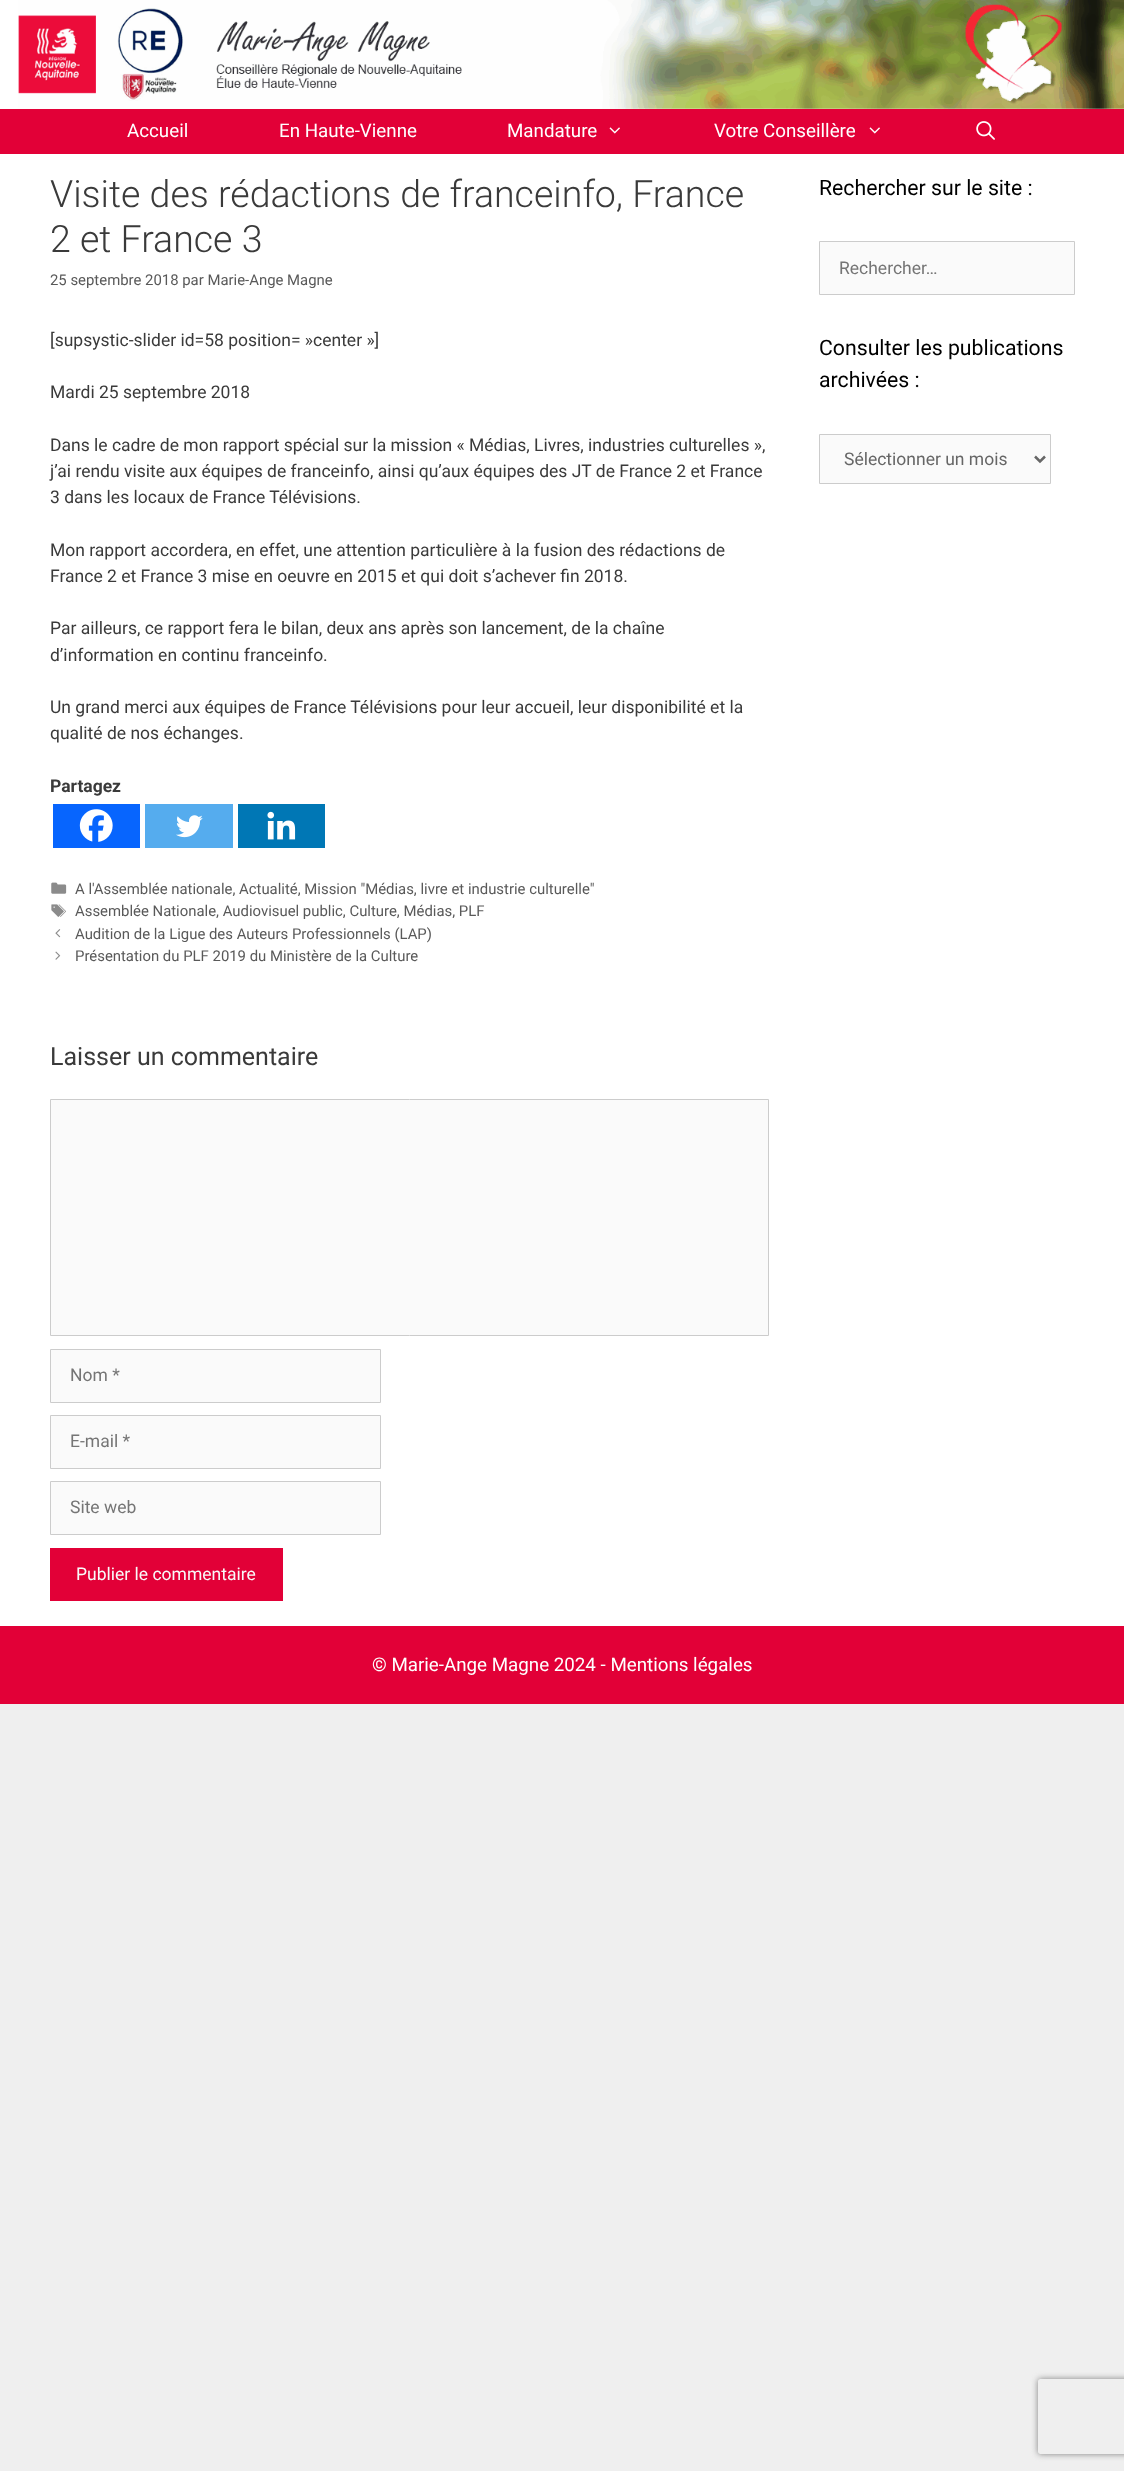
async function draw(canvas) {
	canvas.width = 1124;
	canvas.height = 2471;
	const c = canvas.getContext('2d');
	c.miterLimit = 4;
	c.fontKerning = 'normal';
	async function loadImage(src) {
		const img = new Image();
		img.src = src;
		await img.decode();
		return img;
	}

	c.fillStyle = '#efefef';
	c.fillRect(0, 0, 1124, 2471);
	c.fillStyle = '#fff';
	c.fillRect(0, 0, 1124, 109);
	c.drawImage(await loadImage('img1.png'), 18, 0, 1106, 109);
	c.fillStyle = '#e20037';
	c.fillRect(0, 109, 1124, 45);
	c.font = '18.75px Roboto';
	c.fillStyle = '#fff';
	for (const [text, x, y] of [
		['Accueil', 127, 137],
		['En Haute-Vienne', 279, 137],
		['Mandature', 507, 137],
	]) {
		c.fillText(text, x, y);
	}
	c.drawImage(await loadImage('img2.png'), 609, 127, 11, 7);
	c.fillText('Votre Conseillère', 714, 137);
	c.drawImage(await loadImage('img2.png'), 869, 127, 11, 7);
	c.drawImage(await loadImage('img3.png'), 976, 121, 19, 19);
	c.fillRect(0, 154, 1124, 1472);
	c.font = '300 37.5px Roboto';
	c.fillStyle = '#3a3a3a';
	c.fillText('Visite des rédactions de franceinfo, France', 50, 207);
	c.fillText('2 et France 3', 50, 252);
	c.font = '14.9px Roboto';
	c.fillStyle = '#595959';
	c.fillText('25 septembre 2018 par Marie-Ange Magne', 50, 285);
	c.font = '17.5px Roboto';
	c.fillStyle = '#3a3a3a';
	for (const [text, x, y] of [
		['[supsystic-slider id=58 position= »center »]', 50, 346],
		['Mardi 25 septembre 2018', 50, 398],
		['Dans le cadre de mon rapport spécial sur la mission « Médias, Livres, industries culturelles »,', 50, 451],
		['j’ai rendu visite aux équipes de franceinfo, ainsi qu’aux équipes des JT de France 2 et France', 50, 477],
		['3 dans les locaux de France Télévisions.', 50, 503],
		['Mon rapport accordera, en effet, une attention particulière à la fusion des rédactions de', 50, 556],
		['France 2 et France 3 mise en oeuvre en 2015 et qui doit s’achever fin 2018.', 50, 582],
		['Par ailleurs, ce rapport fera le bilan, deux ans après son lancement, de la chaîne', 50, 634],
		['d’information en continu franceinfo.', 50, 661],
		['Un grand merci aux équipes de France Télévisions pour leur accueil, leur disponibilité et la', 50, 713],
		['qualité de nos échanges.', 50, 739],
	]) {
		c.fillText(text, x, y);
	}
	c.font = 'bold 17.5px Roboto';
	c.fillText('Partagez', 50, 792);
	c.fillStyle = '#0765fe';
	c.fillRect(53, 804, 87, 44);
	c.drawImage(await loadImage('img4.png'), 79, 809, 34, 33);
	c.fillStyle = '#55acee';
	c.fillRect(145, 804, 88, 44);
	c.drawImage(await loadImage('img5.png'), 176, 815, 27, 23);
	c.fillStyle = '#0077b5';
	c.fillRect(238, 804, 87, 44);
	c.drawImage(await loadImage('img6.png'), 267, 811, 29, 29);
	c.drawImage(await loadImage('img7.png'), 51, 882, 16, 12);
	c.font = '14.9px Roboto';
	c.fillStyle = '#595959';
	c.fillText('A l\'Assemblée nationale, Actualité, Mission "Médias, livre et industrie culturelle"', 75, 894);
	c.drawImage(await loadImage('img8.png'), 51, 904, 15, 13);
	c.fillText('Assemblée Nationale, Audiovisuel public, Culture, Médias, PLF', 75, 916);
	c.drawImage(await loadImage('img9.png'), 55, 929, 6, 9);
	c.fillText('Audition de la Ligue des Auteurs Professionnels (LAP)', 75, 939);
	c.drawImage(await loadImage('img10.png'), 55, 951, 6, 9);
	c.fillText('Présentation du PLF 2019 du Ministère de la Culture', 75, 961);
	c.font = '25px Roboto';
	c.fillStyle = '#3a3a3a';
	c.fillText('Laisser un commentaire', 50, 1065);
	c.fillStyle = '#fafafa';
	c.beginPath();
	c.rect(50.5, 1099.5, 718, 236);
	c.fill();
	c.strokeStyle = '#ccc';
	c.stroke();
	c.beginPath();
	c.rect(50.5, 1349.5, 330, 53);
	c.fill();
	c.stroke();
	c.font = '17.5px Roboto';
	c.fillStyle = '#757575';
	c.fillText('Nom *', 70, 1381);
	c.fillStyle = '#fafafa';
	c.beginPath();
	c.rect(50.5, 1415.5, 330, 53);
	c.fill();
	c.stroke();
	c.fillStyle = '#757575';
	c.fillText('E-mail *', 70, 1447);
	c.fillStyle = '#fafafa';
	c.beginPath();
	c.rect(50.5, 1481.5, 330, 53);
	c.fill();
	c.stroke();
	c.fillStyle = '#757575';
	c.fillText('Site web', 70, 1513);
	c.fillStyle = '#e20037';
	c.fillRect(50, 1548, 233, 53);
	c.fillStyle = '#f9f9f9';
	c.fillText('Publier le commentaire', 76, 1580);
	c.font = '21.25px Roboto';
	c.fillStyle = '#000';
	c.fillText('Rechercher sur le site :', 819, 195);
	c.fillStyle = '#fafafa';
	c.beginPath();
	c.rect(819.5, 241.5, 255, 53);
	c.fill();
	c.stroke();
	c.font = '17.5px Roboto';
	c.fillStyle = '#757575';
	c.fillText('Rechercher…', 839, 274);
	c.font = '21.25px Roboto';
	c.fillStyle = '#000';
	c.fillText('Consulter les publications', 819, 355);
	c.fillText('archivées :', 819, 387);
	c.fillStyle = '#fafafa';
	c.beginPath();
	c.rect(819.5, 434.5, 231, 49);
	c.fill();
	c.stroke();
	c.beginPath();
	c.moveTo(1035, 456.5);
	c.lineTo(1040, 461.5);
	c.lineTo(1045, 456.5);
	c.strokeStyle = '#666';
	c.lineWidth = 2.5;
	c.stroke();
	c.font = '17.5px Roboto';
	c.fillStyle = '#666';
	c.fillText('Sélectionner un mois', 844, 465);
	c.fillStyle = '#e20037';
	c.fillRect(0, 1626, 1124, 78);
	c.font = '18.75px Roboto';
	c.fillStyle = '#fff';
	c.fillText('© Marie-Ange Magne 2024 - Mentions légales', 372, 1671);
	c.save();
	c.beginPath();
	c.moveTo(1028, 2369);
	c.lineTo(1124, 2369);
	c.lineTo(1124, 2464);
	c.lineTo(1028, 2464);
	c.closePath();
	c.moveTo(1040.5, 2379);
	c.lineTo(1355.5, 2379);
	c.bezierCurveTo(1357, 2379, 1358, 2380, 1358, 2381.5);
	c.lineTo(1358, 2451.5);
	c.bezierCurveTo(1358, 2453, 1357, 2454, 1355.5, 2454);
	c.lineTo(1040.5, 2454);
	c.bezierCurveTo(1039, 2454, 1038, 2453, 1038, 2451.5);
	c.lineTo(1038, 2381.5);
	c.bezierCurveTo(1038, 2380, 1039, 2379, 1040.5, 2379);
	c.closePath();
	c.clip('evenodd');
	c.fillStyle = '#808080';
	c.filter = 'blur(3px)';
	c.beginPath();
	c.roundRect(1038, 2379, 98, 75, 2.5);
	c.fill();
	c.filter = 'none';
	c.restore();
}

draw(document.querySelector('canvas'));
